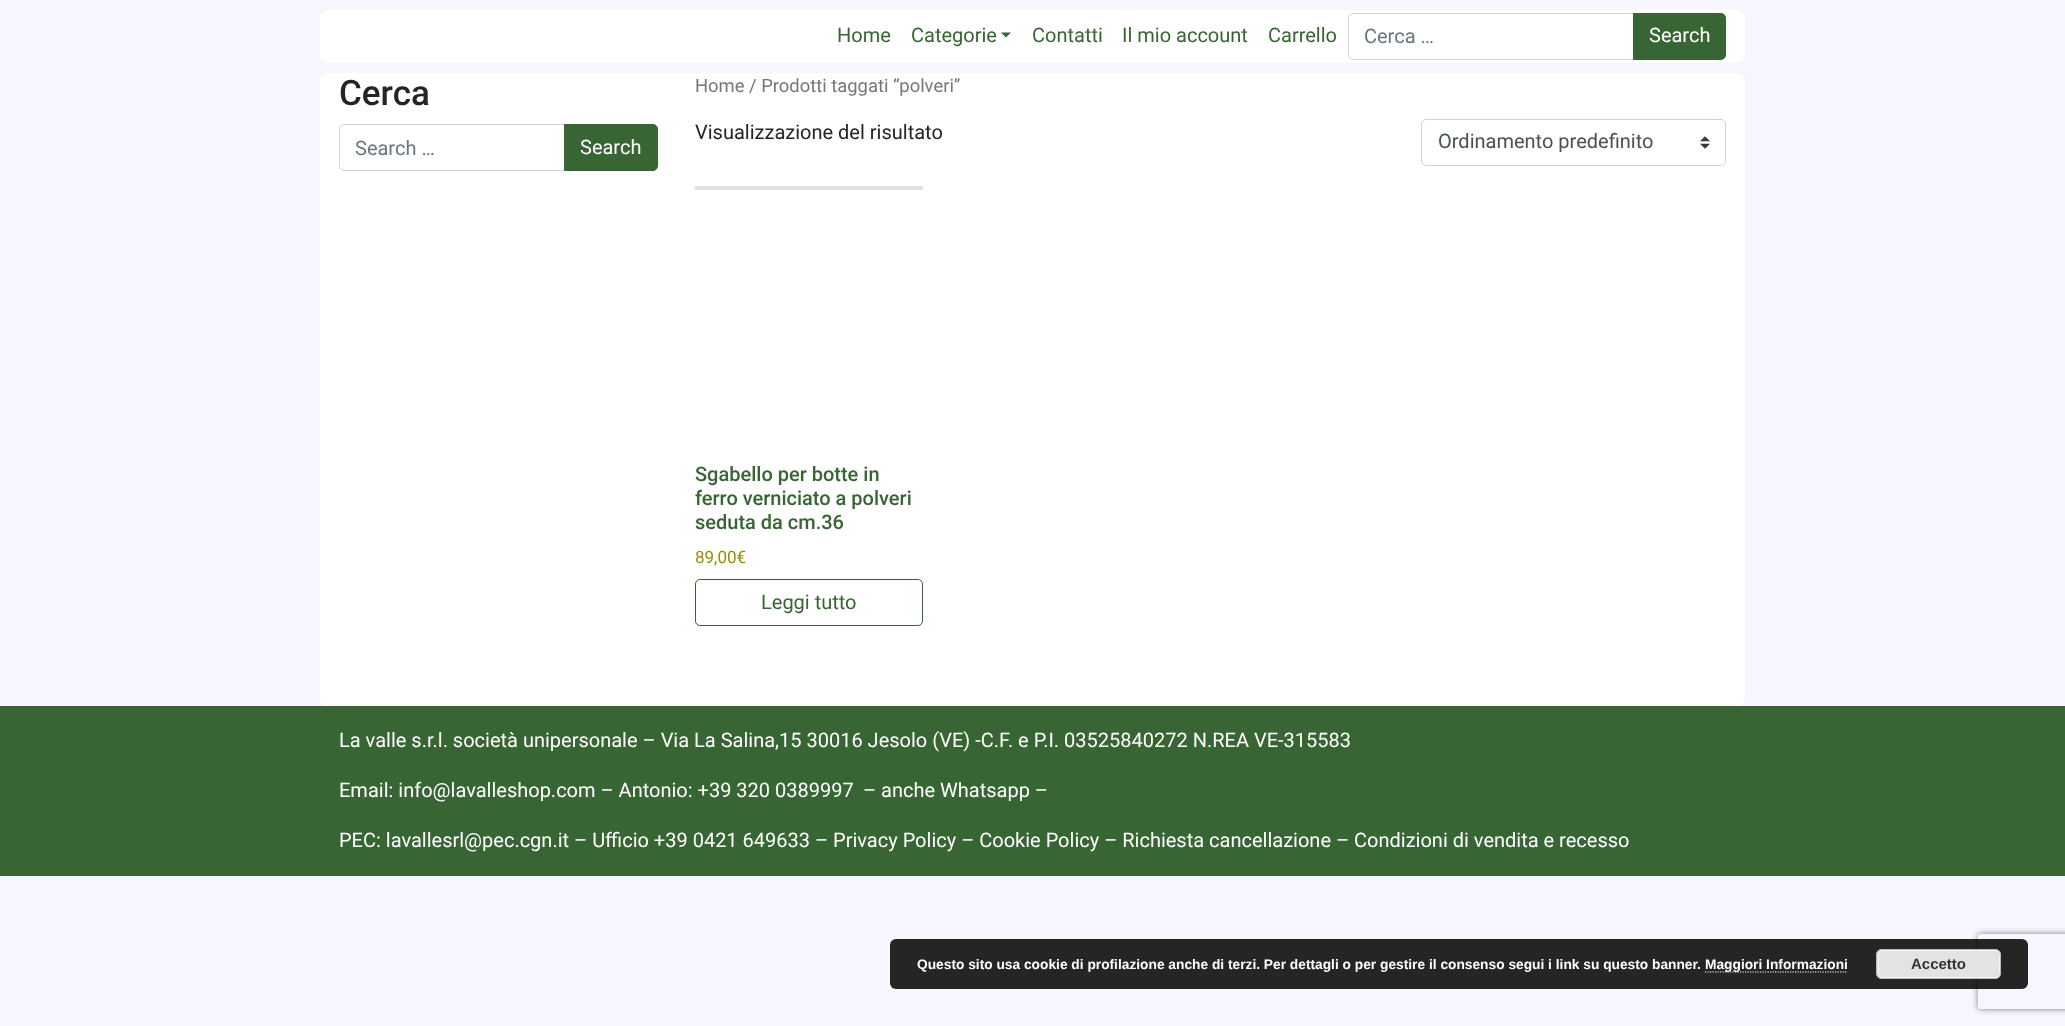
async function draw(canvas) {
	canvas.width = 2065;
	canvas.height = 1026;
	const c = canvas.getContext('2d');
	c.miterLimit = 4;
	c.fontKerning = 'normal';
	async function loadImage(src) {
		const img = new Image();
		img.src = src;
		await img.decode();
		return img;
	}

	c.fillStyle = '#f7f6fe';
	c.fillRect(0, 0, 2065, 1026);
	c.fillStyle = '#fff';
	c.beginPath();
	c.roundRect(320, 10, 1425, 53, 8);
	c.fill();
	c.font = '20px Roboto';
	c.fillStyle = '#376533';
	c.fillText('Home', 837, 42);
	c.fillText('Categorie', 911, 42);
	c.beginPath();
	c.moveTo(1001, 32.5);
	c.lineTo(1011, 32.5);
	c.lineTo(1006, 37.5);
	c.closePath();
	c.fill();
	for (const [text, x, y] of [
		['Contatti', 1032, 42],
		['Il mio account', 1122, 42],
		['Carrello', 1268, 42],
	]) {
		c.fillText(text, x, y);
	}
	c.beginPath();
	c.roundRect(1348.5, 13.5, 285, 46, [4.5, 0, 0, 4.5]);
	c.strokeStyle = '#ced4da';
	c.stroke();
	c.fillStyle = '#6c757d';
	c.fillText('Cerca …', 1364, 43);
	c.fillStyle = '#376533';
	c.beginPath();
	c.roundRect(1633.5, 13.5, 92, 46, [0, 4.5, 4.5, 0]);
	c.fill();
	c.strokeStyle = '#376533';
	c.stroke();
	c.fillStyle = '#fff';
	c.fillText('Search', 1649, 42);
	c.beginPath();
	c.roundRect(320, 73, 1425, 633, 8);
	c.fill();
	c.font = '500 35px Roboto';
	c.fillStyle = '#212529';
	c.fillText('Cerca', 339, 105);
	c.beginPath();
	c.roundRect(339.5, 124.5, 225, 46, [4.5, 0, 0, 4.5]);
	c.strokeStyle = '#ced4da';
	c.stroke();
	c.font = '20px Roboto';
	c.fillStyle = '#6c757d';
	c.fillText('Search …', 355, 155);
	c.fillStyle = '#376533';
	c.beginPath();
	c.roundRect(564.5, 124.5, 93, 46, [0, 4.5, 4.5, 0]);
	c.fill();
	c.strokeStyle = '#376533';
	c.stroke();
	c.fillStyle = '#fff';
	c.fillText('Search', 580, 154);
	c.font = '18.4px Roboto';
	c.fillStyle = '#767676';
	c.fillText('Home / Prodotti taggati “polveri”', 695, 92);
	c.font = '20px Roboto';
	c.fillStyle = '#212529';
	c.fillText('Visualizzazione del risultato', 695, 139);
	c.drawImage(await loadImage('img1.png'), 1700, 136, 10, 13);
	c.beginPath();
	c.roundRect(1421.5, 119.5, 304, 46, 4.5);
	c.strokeStyle = '#ced4da';
	c.stroke();
	c.fillStyle = '#495057';
	c.fillText('Ordinamento predefinito', 1438, 148);
	c.fillStyle = '#dee2e6';
	c.fillRect(695, 186, 228, 4);
	c.font = '500 20px Roboto';
	c.fillStyle = '#376533';
	for (const [text, x, y] of [
		['Sgabello per botte in', 695, 481],
		['ferro verniciato a polveri', 695, 505],
		['seduta da cm.36', 695, 529],
	]) {
		c.fillText(text, x, y);
	}
	c.font = '17px Roboto';
	c.fillStyle = '#958e09';
	c.fillText('89,00€', 695, 563);
	c.beginPath();
	c.roundRect(695.5, 579.5, 227, 46, 4.5);
	c.strokeStyle = '#376533';
	c.stroke();
	c.font = '20px Roboto';
	c.fillStyle = '#376533';
	c.fillText('Leggi tutto', 761, 609);
	c.fillRect(0, 706, 2065, 170);
	c.fillStyle = '#fff';
	for (const [text, x, y] of [
		['La valle s.r.l. società unipersonale – Via La Salina,15 30016 Jesolo (VE) -C.F. e P.I. 03525840272 N.REA VE-315583', 339, 747],
		['Email: info@lavalleshop.com – Antonio: +39 320 0389997', 339, 797],
		['– anche Whatsapp –', 863, 797],
		['PEC: lavallesrl@pec.cgn.it – Ufficio +39 0421 649633 – Privacy Policy – Cookie Policy – Richiesta cancellazione – Condizioni di vendita e recesso', 339, 847],
	]) {
		c.fillText(text, x, y);
	}
	c.save();
	c.beginPath();
	c.moveTo(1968, 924);
	c.lineTo(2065, 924);
	c.lineTo(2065, 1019);
	c.lineTo(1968, 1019);
	c.closePath();
	c.moveTo(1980.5, 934);
	c.lineTo(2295.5, 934);
	c.bezierCurveTo(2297, 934, 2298, 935, 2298, 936.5);
	c.lineTo(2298, 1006.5);
	c.bezierCurveTo(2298, 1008, 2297, 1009, 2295.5, 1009);
	c.lineTo(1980.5, 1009);
	c.bezierCurveTo(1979, 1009, 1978, 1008, 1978, 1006.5);
	c.lineTo(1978, 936.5);
	c.bezierCurveTo(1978, 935, 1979, 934, 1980.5, 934);
	c.closePath();
	c.clip('evenodd');
	c.fillStyle = '#808080';
	c.filter = 'blur(3px)';
	c.beginPath();
	c.roundRect(1978, 934, 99, 75, 2.5);
	c.fill();
	c.filter = 'none';
	c.restore();
	c.fillStyle = '#000000d9';
	c.beginPath();
	c.roundRect(890, 939, 1138, 50, 6);
	c.fill();
	c.font = 'bold 13.75px Liberation Sans';
	c.fillStyle = '#fff';
	c.fillText('Questo sito usa cookie di profilazione anche di terzi. Per dettagli o per gestire il consenso segui i link su questo banner.', 917, 969);
	c.beginPath();
	c.moveTo(1705, 972);
	c.lineTo(1847.5, 972);
	c.strokeStyle = '#fff';
	c.lineWidth = 1.2;
	c.setLineDash([1.25, 1.25]);
	c.stroke();
	c.fillText('Maggiori Informazioni', 1705, 969);
	c.fillStyle = '#e3e3e3';
	c.beginPath();
	c.roundRect(1876, 949, 125, 30, 6);
	c.fill();
	c.beginPath();
	c.roundRect(1878.5, 950.5, 121, 27, 4.5);
	c.strokeStyle = '#f6f6f6';
	c.lineWidth = 1;
	c.setLineDash([]);
	c.stroke();
	c.beginPath();
	c.roundRect(1876.5, 949.5, 124, 29, 5.5);
	c.strokeStyle = '#bbb';
	c.stroke();
	c.font = 'bold 15px Liberation Sans';
	c.fillStyle = '#333';
	c.fillText('Accetto', 1911, 969);
}

draw(document.querySelector('canvas'));
